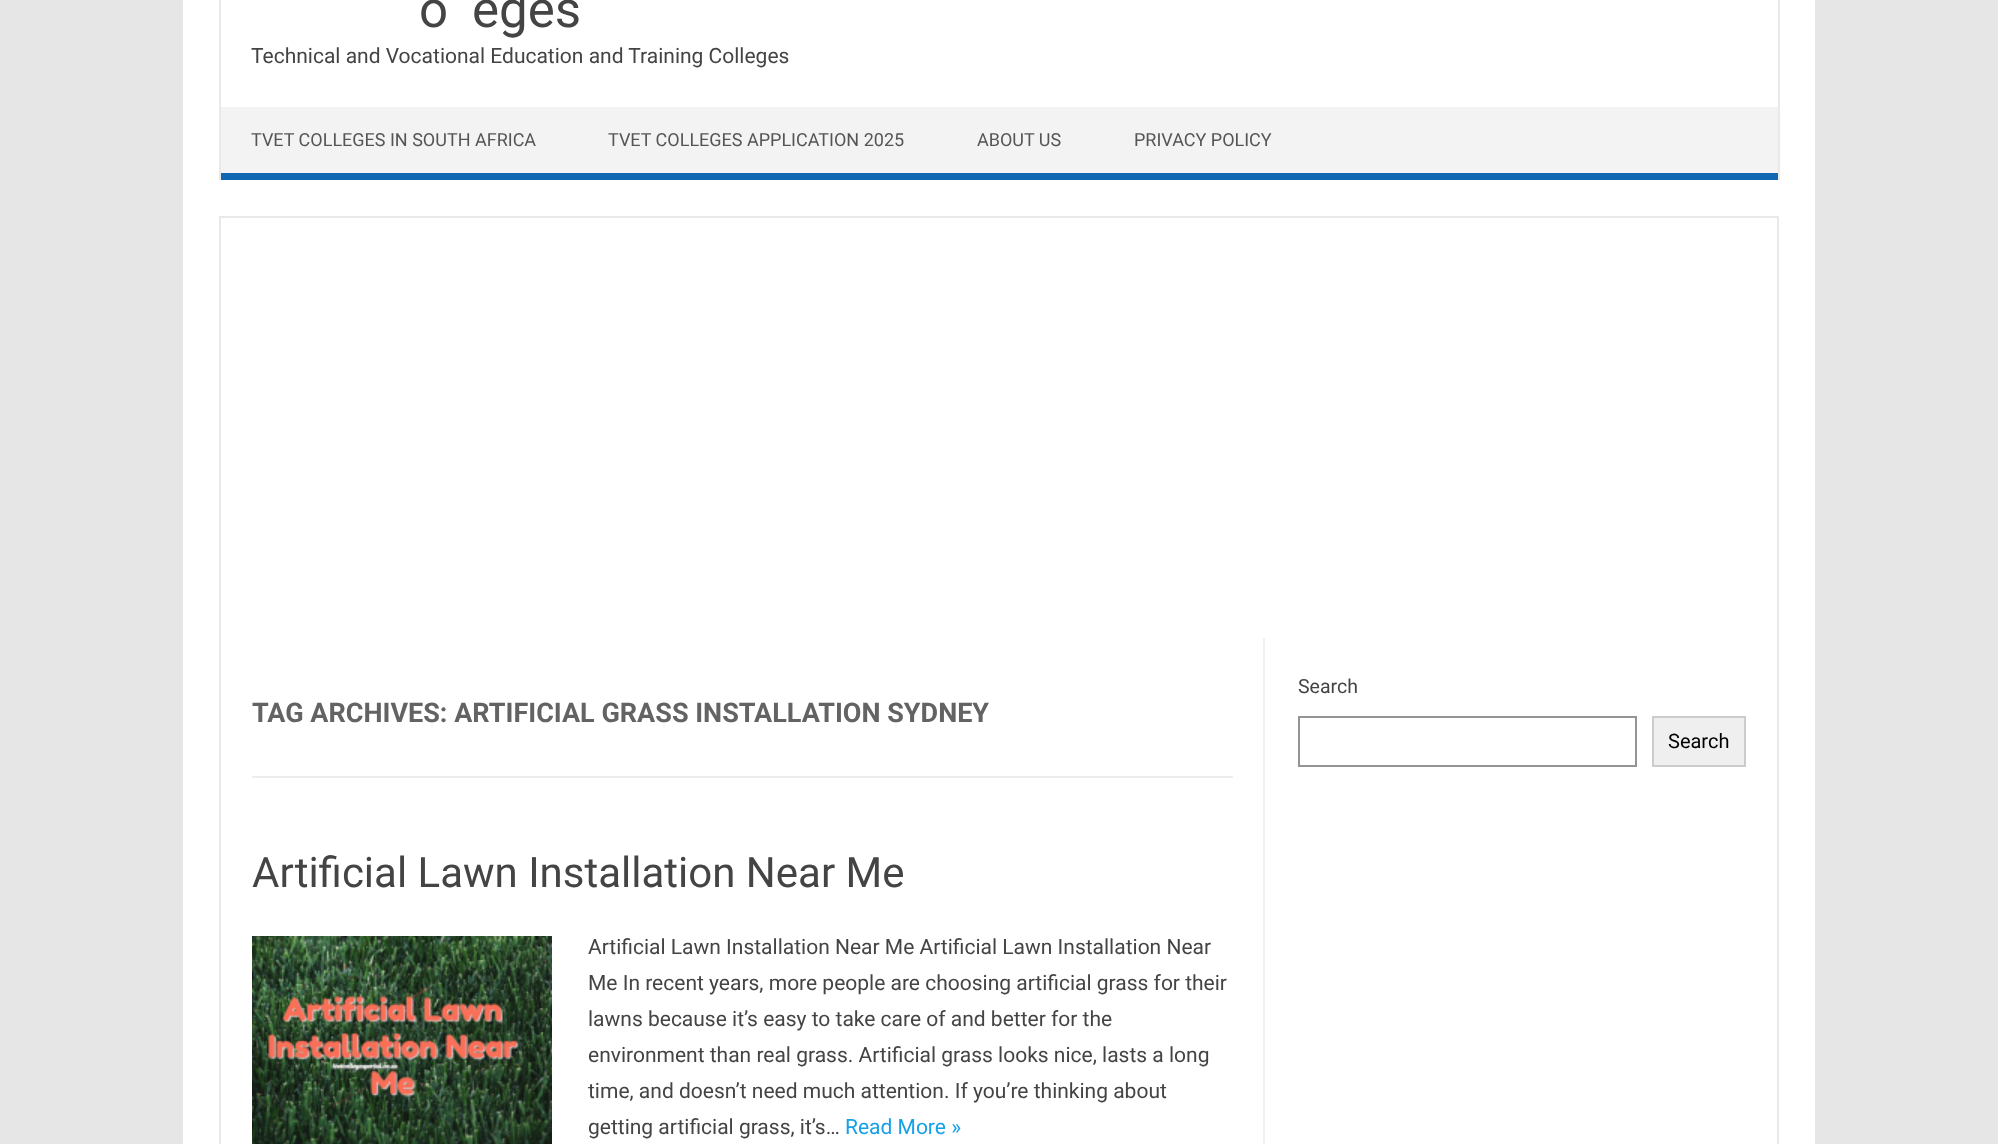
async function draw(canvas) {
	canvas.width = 1998;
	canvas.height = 1144;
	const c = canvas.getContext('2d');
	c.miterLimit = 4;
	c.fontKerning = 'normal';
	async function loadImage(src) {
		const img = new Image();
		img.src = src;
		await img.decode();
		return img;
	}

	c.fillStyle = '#e6e6e6';
	c.fillRect(0, 0, 1998, 1144);
	for (const [x, y, w, h, color] of [
		[183, 0, 1632, 1144, '#fff'],
		[1778, 0, 2, 180, '#e9e9e9'],
		[219, 0, 2, 180, '#e9e9e9'],
	]) {
		c.fillStyle = color;
		c.fillRect(x, y, w, h);
	}
	c.font = '51px Roboto';
	c.fillStyle = '#444';
	c.fillText('o', 419, 27);
	c.fillText('eges', 472, 27);
	c.font = '21px Roboto';
	c.fillText('Technical and Vocational Education and Training Colleges', 251, 63);
	c.fillStyle = '#f3f3f3';
	c.fillRect(221, 107, 1557, 66);
	c.fillStyle = '#1166b1';
	c.fillRect(221, 173, 1557, 7);
	c.font = '18px Roboto';
	c.fillStyle = '#555';
	for (const [text, x, y] of [
		['TVET COLLEGES IN SOUTH AFRICA', 251, 146],
		['TVET COLLEGES APPLICATION 2025', 608, 146],
		['ABOUT US', 977, 146],
		['PRIVACY POLICY', 1134, 146],
	]) {
		c.fillText(text, x, y);
	}
	c.strokeStyle = '#e9e9e9';
	c.lineWidth = 2;
	c.strokeRect(220, 217, 1558, 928);
	c.fillStyle = '#f1f1f1';
	c.fillRect(1263, 638, 2, 506);
	c.fillStyle = '#ededed';
	c.fillRect(252, 776, 981, 2);
	c.font = 'bold 27px Roboto';
	c.fillStyle = '#636363';
	c.fillText('TAG ARCHIVES: ARTIFICIAL GRASS INSTALLATION SYDNEY', 252, 722);
	c.font = '42px Roboto';
	c.fillStyle = '#444';
	c.fillText('Artificial Lawn Installation Near Me', 252, 887);
	c.drawImage(await loadImage('img1.png'), 252, 936, 300, 208);
	c.font = '21px Roboto';
	for (const [text, x, y] of [
		['Artificial Lawn Installation Near Me Artificial Lawn Installation Near', 588, 954],
		['Me In recent years, more people are choosing artificial grass for their', 588, 990],
		['lawns because it’s easy to take care of and better for the', 588, 1026],
		['environment than real grass. Artificial grass looks nice, lasts a long', 588, 1062],
		['time, and doesn’t need much attention. If you’re thinking about', 588, 1098],
		['getting artificial grass, it’s…', 588, 1134],
	]) {
		c.fillText(text, x, y);
	}
	c.fillStyle = '#16a1e7';
	c.fillText('Read More »', 845, 1134);
	c.font = '19.5px Roboto';
	c.fillStyle = '#444';
	c.fillText('Search', 1298, 693);
	c.strokeStyle = '#949494';
	c.strokeRect(1299, 717, 337, 49);
	c.fillStyle = '#efefef';
	c.beginPath();
	c.rect(1653, 717, 92, 49);
	c.fill();
	c.strokeStyle = '#ccc';
	c.stroke();
	c.font = '20px Roboto';
	c.fillStyle = '#000';
	c.fillText('Search', 1668, 748);
}

draw(document.querySelector('canvas'));
